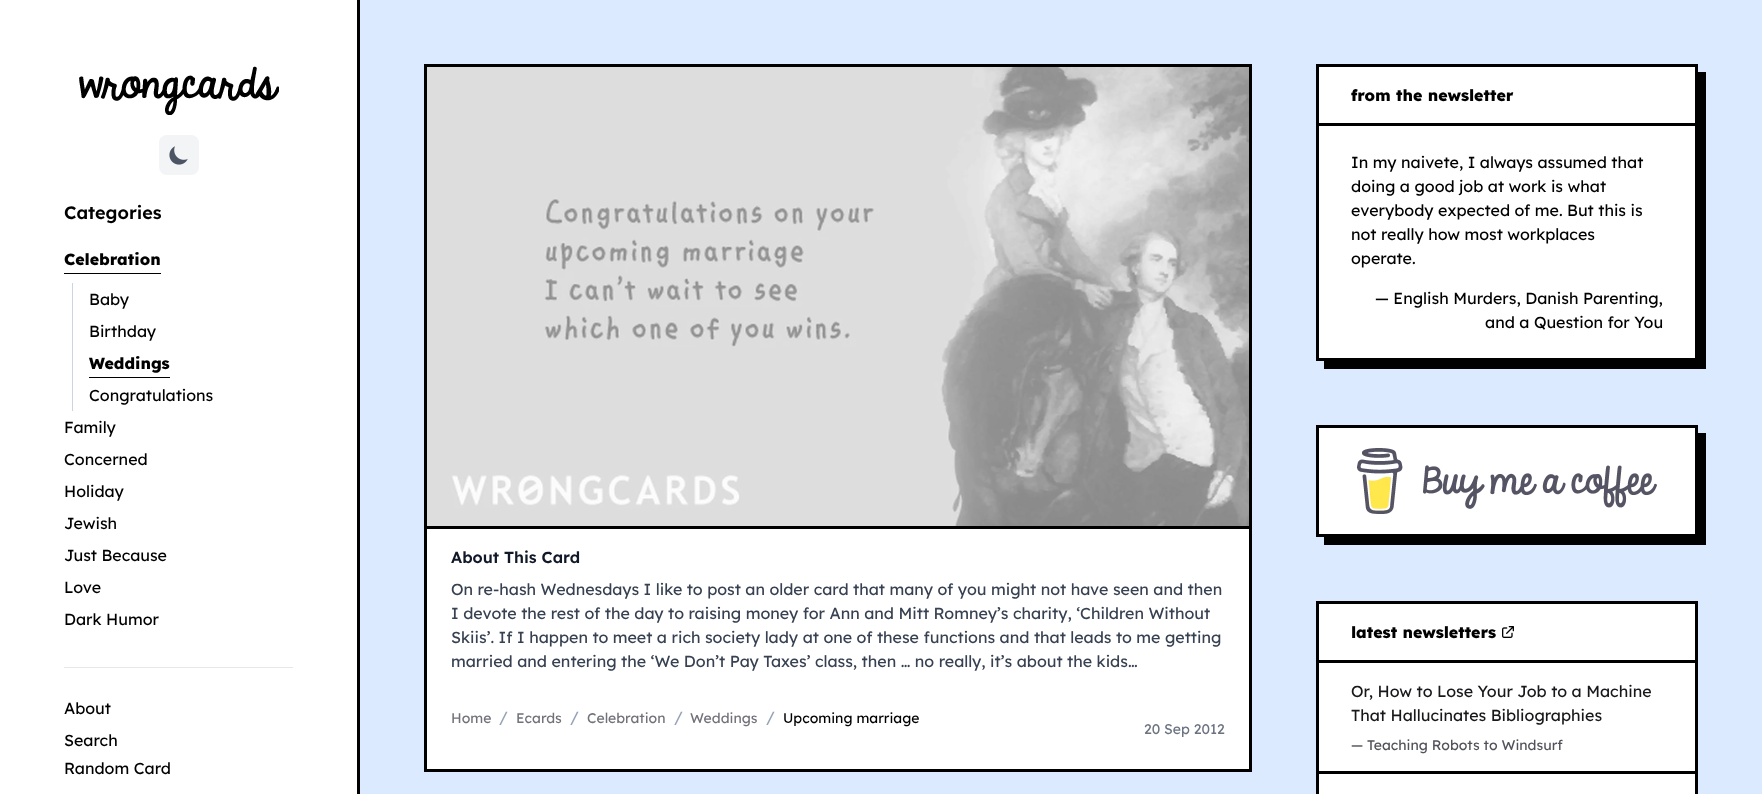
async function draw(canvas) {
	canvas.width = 1762;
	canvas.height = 794;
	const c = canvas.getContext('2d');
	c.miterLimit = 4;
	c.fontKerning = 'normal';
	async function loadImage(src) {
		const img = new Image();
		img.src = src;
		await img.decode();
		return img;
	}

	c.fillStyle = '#fff';
	c.fillRect(0, 0, 1762, 794);
	c.fillStyle = '#000';
	c.fillRect(357, 0, 3, 794);
	c.drawImage(await loadImage('img1.png'), 79, 66, 200, 49);
	c.fillStyle = '#f3f4f6';
	c.beginPath();
	c.roundRect(159, 135, 40, 40, 8);
	c.fill();
	c.drawImage(await loadImage('img2.png'), 169, 146, 19, 19);
	c.font = '600 18px Lexend';
	c.fillStyle = '#000';
	c.fillText('Categories', 64, 219);
	c.font = '800 16px Lexend';
	c.fillText('Celebration', 64, 265);
	c.fillRect(64, 273, 97, 1);
	c.fillStyle = '#cbd5e1';
	c.fillRect(72, 283, 1, 128);
	c.font = '16px Lexend';
	c.fillStyle = '#000';
	c.fillText('Baby', 89, 305);
	c.fillText('Birthday', 89, 337);
	c.font = '800 16px Lexend';
	c.fillText('Weddings', 89, 369);
	c.fillRect(89, 377, 81, 1);
	c.font = '16px Lexend';
	for (const [text, x, y] of [
		['Congratulations', 89, 401],
		['Family', 64, 433],
		['Concerned', 64, 465],
		['Holiday', 64, 497],
		['Jewish', 64, 529],
		['Just Because', 64, 561],
		['Love', 64, 593],
		['Dark Humor', 64, 625],
	]) {
		c.fillText(text, x, y);
	}
	c.fillStyle = '#e5e7eb';
	c.fillRect(64, 667, 229, 1);
	c.fillStyle = '#000';
	for (const [text, x, y] of [
		['About', 64, 714],
		['Search', 64, 746],
		['Random Card', 64, 774],
	]) {
		c.fillText(text, x, y);
	}
	c.fillStyle = '#dbeafe';
	c.fillRect(360, 0, 1402, 794);
	c.fillStyle = '#fff';
	c.beginPath();
	c.rect(425.5, 65.5, 825, 705);
	c.fill();
	c.strokeStyle = '#000';
	c.lineWidth = 3;
	c.stroke();
	c.fillStyle = '#000';
	c.fillRect(427, 526, 822, 3);
	c.drawImage(await loadImage('img3.png'), 427, 67, 822, 459);
	c.font = '600 16px Lexend';
	c.fillStyle = '#111827';
	c.fillText('About This Card', 451, 563);
	c.font = '16px Lexend';
	c.fillStyle = '#374151';
	for (const [text, x, y] of [
		['On re-hash Wednesdays I like to post an older card that many of you might not have seen and then', 451, 595],
		['I devote the rest of the day to raising money for Ann and Mitt Romney’s charity, ‘Children Without', 451, 619],
		['Skiis’. If I happen to meet a rich society lady at one of these functions and that leads to me getting', 451, 643],
		['married and entering the ‘We Don’t Pay Taxes’ class, then … no really, it’s about the kids…', 451, 667],
	]) {
		c.fillText(text, x, y);
	}
	c.font = '14px Lexend';
	c.fillStyle = '#71717a';
	c.fillText('Home', 451, 723);
	c.font = '16px Lexend';
	c.fillStyle = '#94a3b8';
	c.fillText('/', 499, 723);
	c.font = '14px Lexend';
	c.fillStyle = '#71717a';
	c.fillText('Ecards', 516, 723);
	c.font = '16px Lexend';
	c.fillStyle = '#94a3b8';
	c.fillText('/', 570, 723);
	c.font = '14px Lexend';
	c.fillStyle = '#71717a';
	c.fillText('Celebration', 587, 723);
	c.font = '16px Lexend';
	c.fillStyle = '#94a3b8';
	c.fillText('/', 674, 723);
	c.font = '14px Lexend';
	c.fillStyle = '#71717a';
	c.fillText('Weddings', 690, 723);
	c.font = '16px Lexend';
	c.fillStyle = '#94a3b8';
	c.fillText('/', 766, 723);
	c.font = '14px Lexend';
	c.fillStyle = '#000';
	c.fillText('Upcoming marriage', 783, 723);
	c.fillStyle = '#6b7280';
	c.fillText('20 Sep 2012', 1144, 734);
	c.fillStyle = '#000';
	c.beginPath();
	c.moveTo(1324, 361);
	c.lineTo(1324, 369);
	c.lineTo(1706, 369);
	c.lineTo(1706, 72);
	c.lineTo(1698, 72);
	c.lineTo(1698, 361);
	c.closePath();
	c.fill();
	c.fillStyle = '#fff';
	c.beginPath();
	c.rect(1317.5, 65.5, 379, 294);
	c.fill();
	c.stroke();
	c.fillStyle = '#000';
	c.fillRect(1319, 123, 376, 3);
	c.font = '800 16px Lexend';
	c.fillText('from the newsletter', 1351, 101);
	c.font = '16px Lexend';
	for (const [text, x, y] of [
		['In my naivete, I always assumed that', 1351, 168],
		['doing a good job at work is what', 1351, 192],
		['everybody expected of me. But this is', 1351, 216],
		['not really how most workplaces', 1351, 240],
		['operate.', 1351, 264],
		['— English Murders, Danish Parenting,', 1375, 304],
		['and a Question for You', 1485, 328],
	]) {
		c.fillText(text, x, y);
	}
	c.beginPath();
	c.moveTo(1324, 537);
	c.lineTo(1324, 545);
	c.lineTo(1706, 545);
	c.lineTo(1706, 433);
	c.lineTo(1698, 433);
	c.lineTo(1698, 537);
	c.closePath();
	c.fill();
	c.fillStyle = '#fff';
	c.beginPath();
	c.rect(1317.5, 426.5, 379, 109);
	c.fill();
	c.stroke();
	c.drawImage(await loadImage('img4.png'), 1357, 448, 300, 66);
	c.beginPath();
	c.rect(1317.5, 602.5, 379, 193);
	c.fill();
	c.stroke();
	c.fillStyle = '#000';
	c.fillRect(1319, 660, 376, 3);
	c.font = '800 16px Lexend';
	c.fillText('latest newsletters', 1351, 638);
	c.drawImage(await loadImage('img5.png'), 1502, 626, 12, 12);
	c.font = '16px Lexend';
	c.fillStyle = '#18181b';
	c.fillText('Or, How to Lose Your Job to a Machine', 1351, 697);
	c.fillText('That Hallucinates Bibliographies', 1351, 721);
	c.font = '14px Lexend';
	c.fillStyle = '#52525b';
	c.fillText('— Teaching Robots to Windsurf', 1351, 750);
	c.fillStyle = '#000';
	c.fillRect(1319, 771, 376, 3);
}

draw(document.querySelector('canvas'));
